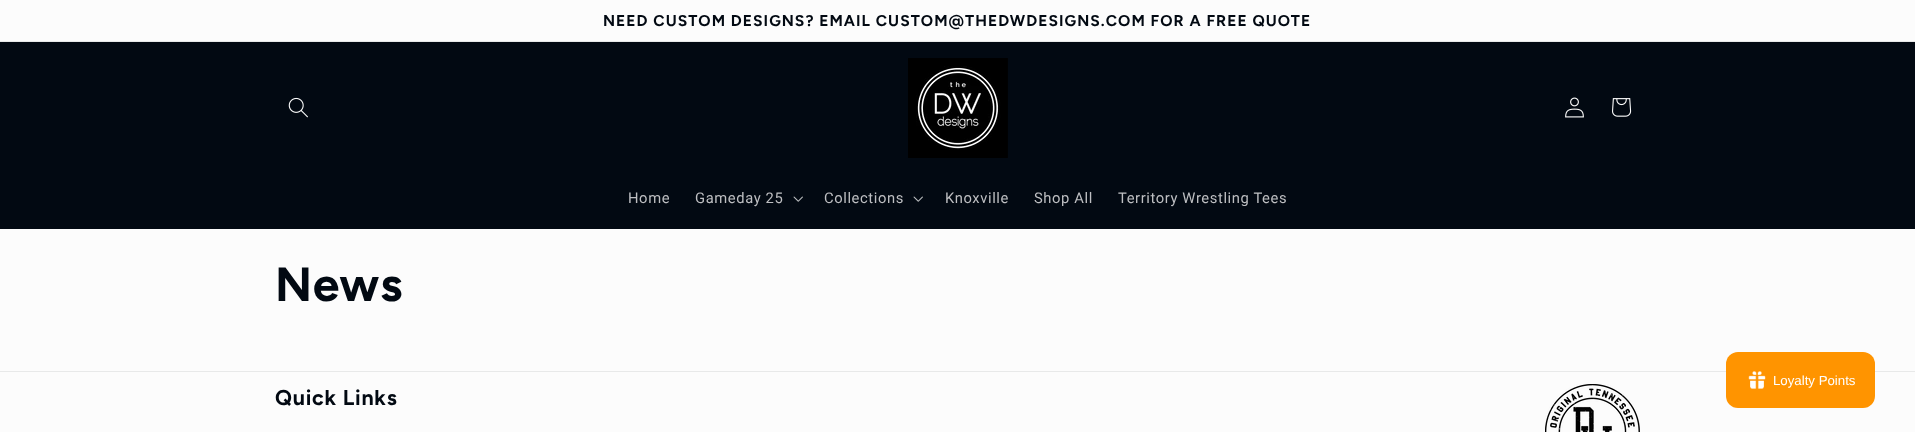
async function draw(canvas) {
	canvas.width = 1915;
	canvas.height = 432;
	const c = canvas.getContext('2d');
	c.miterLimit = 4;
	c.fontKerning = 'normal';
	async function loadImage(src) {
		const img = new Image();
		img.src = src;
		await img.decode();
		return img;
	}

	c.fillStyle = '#fcfcfc';
	c.fillRect(0, 0, 1915, 432);
	c.fillStyle = '#e8e9e9';
	c.fillRect(0, 41, 1915, 1);
	c.letterSpacing = '1.05px';
	c.font = 'bold 15.6px Figtree';
	c.fillStyle = '#020912';
	c.fillText('NEED CUSTOM DESIGNS? EMAIL CUSTOM@THEDWDESIGNS.COM FOR A FREE QUOTE', 603, 26);
	c.fillRect(0, 42, 1915, 187);
	c.drawImage(await loadImage('img1.png'), 288, 97, 20, 21);
	c.drawImage(await loadImage('img2.png'), 908, 58, 100, 100);
	c.drawImage(await loadImage('img3.png'), 1565, 97, 19, 21);
	c.drawImage(await loadImage('img4.png'), 1612, 98, 20, 19);
	c.letterSpacing = '0.6px';
	c.font = '14.75px Roboto';
	c.fillStyle = '#bebfc2';
	c.fillText('Home', 628, 203);
	c.fillText('Gameday 25', 695, 203);
	c.drawImage(await loadImage('img5.png'), 793, 196, 10, 6);
	c.fillText('Collections', 824, 203);
	c.drawImage(await loadImage('img5.png'), 913, 196, 10, 6);
	for (const [text, x, y] of [
		['Knoxville', 945, 203],
		['Shop All', 1034, 203],
		['Territory Wrestling Tees', 1118, 203],
	]) {
		c.fillText(text, x, y);
	}
	c.letterSpacing = '0.75px';
	c.font = 'bold 48px Figtree';
	c.fillStyle = '#020912';
	c.fillText('News', 275, 301);
	c.fillStyle = '#e8e9e9';
	c.fillRect(0, 371, 1915, 1);
	c.fillStyle = '#ff9400';
	c.beginPath();
	c.roundRect(1726, 352, 149, 56, 12);
	c.fill();
	c.drawImage(await loadImage('img6.png'), 1748, 371, 18, 18);
	c.letterSpacing = '0px';
	c.font = '13.25px Liberation Sans';
	c.fillStyle = '#fff';
	c.fillText('Loyalty Points', 1773, 385);
	c.letterSpacing = '0.75px';
	c.font = 'bold 21.5px Figtree';
	c.fillStyle = '#020912';
	c.fillText('Quick Links', 275, 405);
	c.drawImage(await loadImage('img7.png'), 1545, 384, 95, 48);
}

draw(document.querySelector('canvas'));
